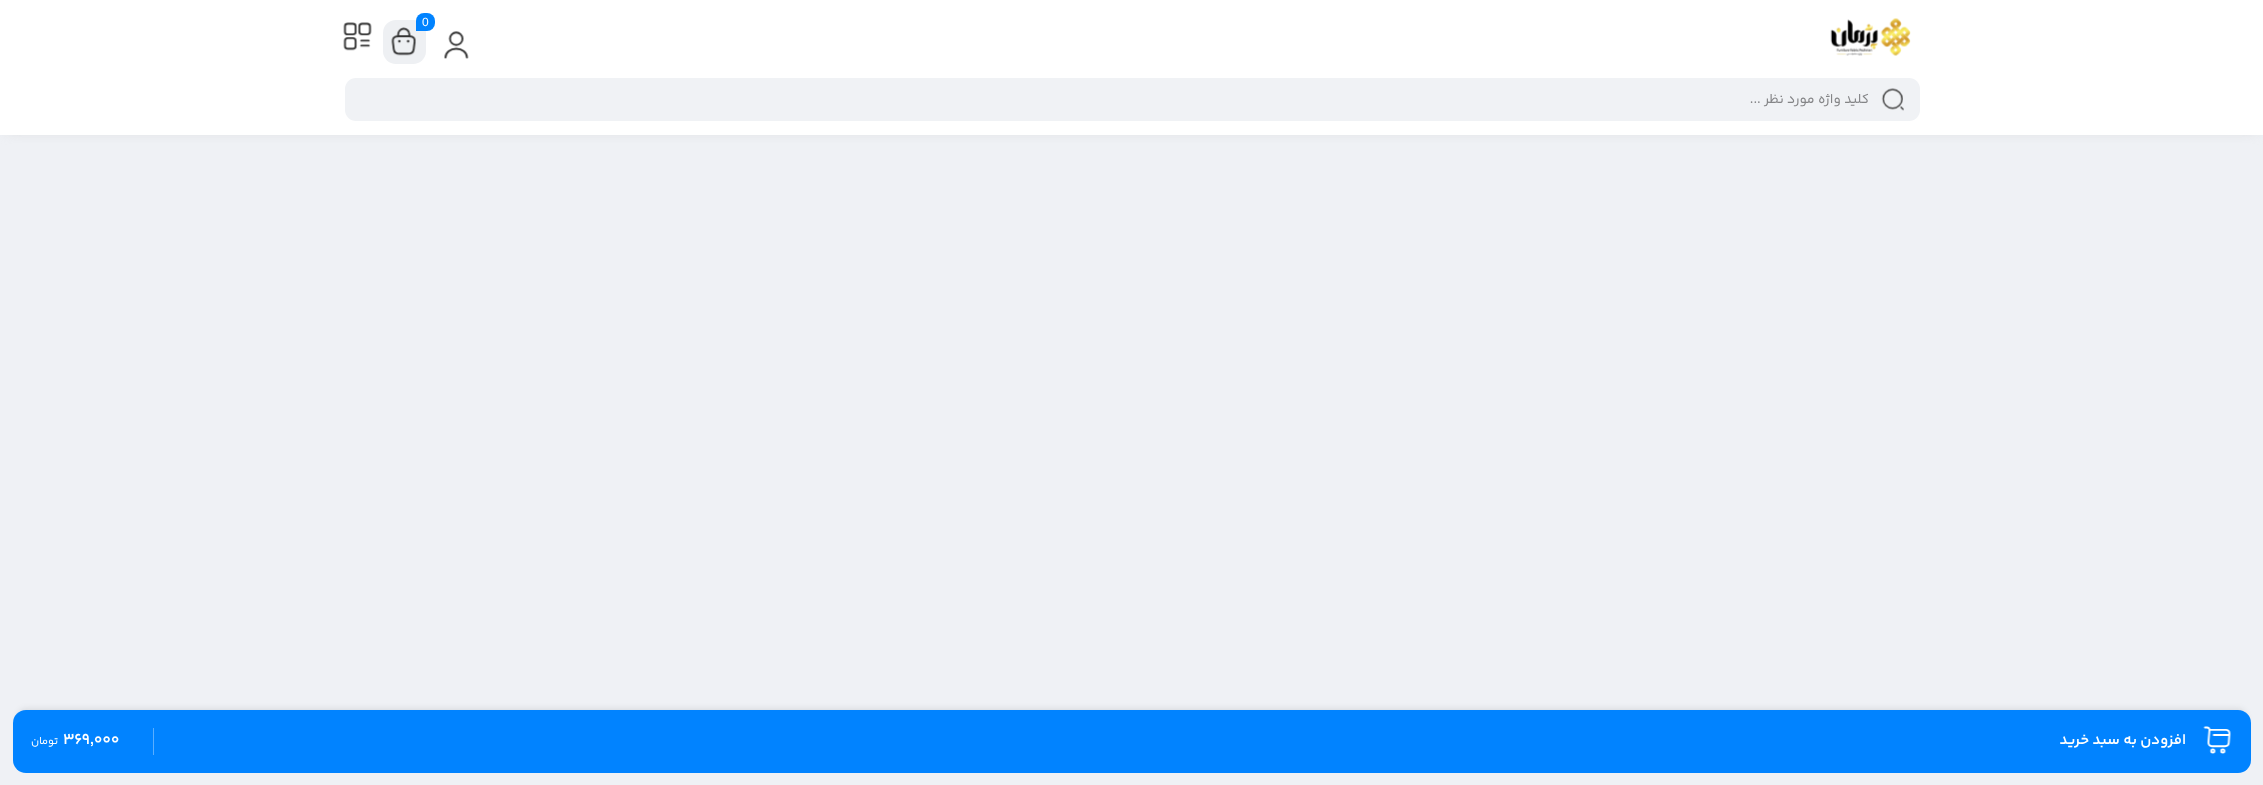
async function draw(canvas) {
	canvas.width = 2263;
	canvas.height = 785;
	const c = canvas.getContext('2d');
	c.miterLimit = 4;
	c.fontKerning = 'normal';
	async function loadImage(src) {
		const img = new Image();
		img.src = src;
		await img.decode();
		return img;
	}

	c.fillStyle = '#eff1f5';
	c.fillRect(0, 0, 2263, 785);
	c.fillStyle = '#ccc';
	c.filter = 'blur(7px)';
	c.beginPath();
	c.rect(6, 6, 2252, 123);
	c.fill();
	c.filter = 'none';
	c.fillStyle = '#fff';
	c.fillRect(0, 0, 2263, 135);
	c.drawImage(await loadImage('img1.png'), 1830, 18, 81, 38);
	c.drawImage(await loadImage('img2.png'), 444, 31, 25, 28);
	c.fillStyle = '#eef0f3';
	c.beginPath();
	c.roundRect(383, 20, 43, 44, 13);
	c.fill();
	c.fillStyle = '#0183ff';
	c.beginPath();
	c.roundRect(416, 13, 19, 18, [8, 8, 8, 0]);
	c.fill();
	c.font = '12px Liberation Sans';
	c.fillStyle = '#fff';
	c.fillText('0', 422, 26);
	c.drawImage(await loadImage('img3.png'), 391, 27, 25, 29);
	c.drawImage(await loadImage('img4.png'), 343, 22, 29, 29);
	c.fillStyle = '#f0f2f5';
	c.beginPath();
	c.roundRect(345, 78, 1575, 43, 11);
	c.fill();
	c.drawImage(await loadImage('img5.png'), 1881, 88, 23, 23);
	c.direction = 'rtl';
	c.font = '13.75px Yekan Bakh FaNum';
	c.fillStyle = '#848587';
	c.fillText('کلید واژه مورد نظر ...', 1869, 103);
	c.fillStyle = '#0000001a';
	c.filter = 'blur(3px)';
	c.beginPath();
	c.roundRect(18, 709, 2228, 52, 8);
	c.fill();
	c.filter = 'none';
	c.fillStyle = '#0183ff';
	c.beginPath();
	c.roundRect(13, 710, 2238, 63, 13);
	c.fill();
	c.drawImage(await loadImage('img6.png'), 2203, 726, 28, 28);
	c.font = '600 15px Yekan Bakh FaNum';
	c.fillStyle = '#fff';
	c.fillText('افزودن به سبد خرید', 2186, 744);
	c.fillStyle = '#5aaeff';
	c.fillRect(153, 728, 1, 27);
	c.letterSpacing = '-0.25px';
	c.direction = 'ltr';
	c.font = '600 16px Yekan Bakh FaNum';
	c.fillStyle = '#fff';
	c.fillText('369,000', 63, 744);
	c.direction = 'rtl';
	c.font = '11px Yekan Bakh FaNum';
	c.fillText('تومان', 58, 744);
}

draw(document.querySelector('canvas'));
